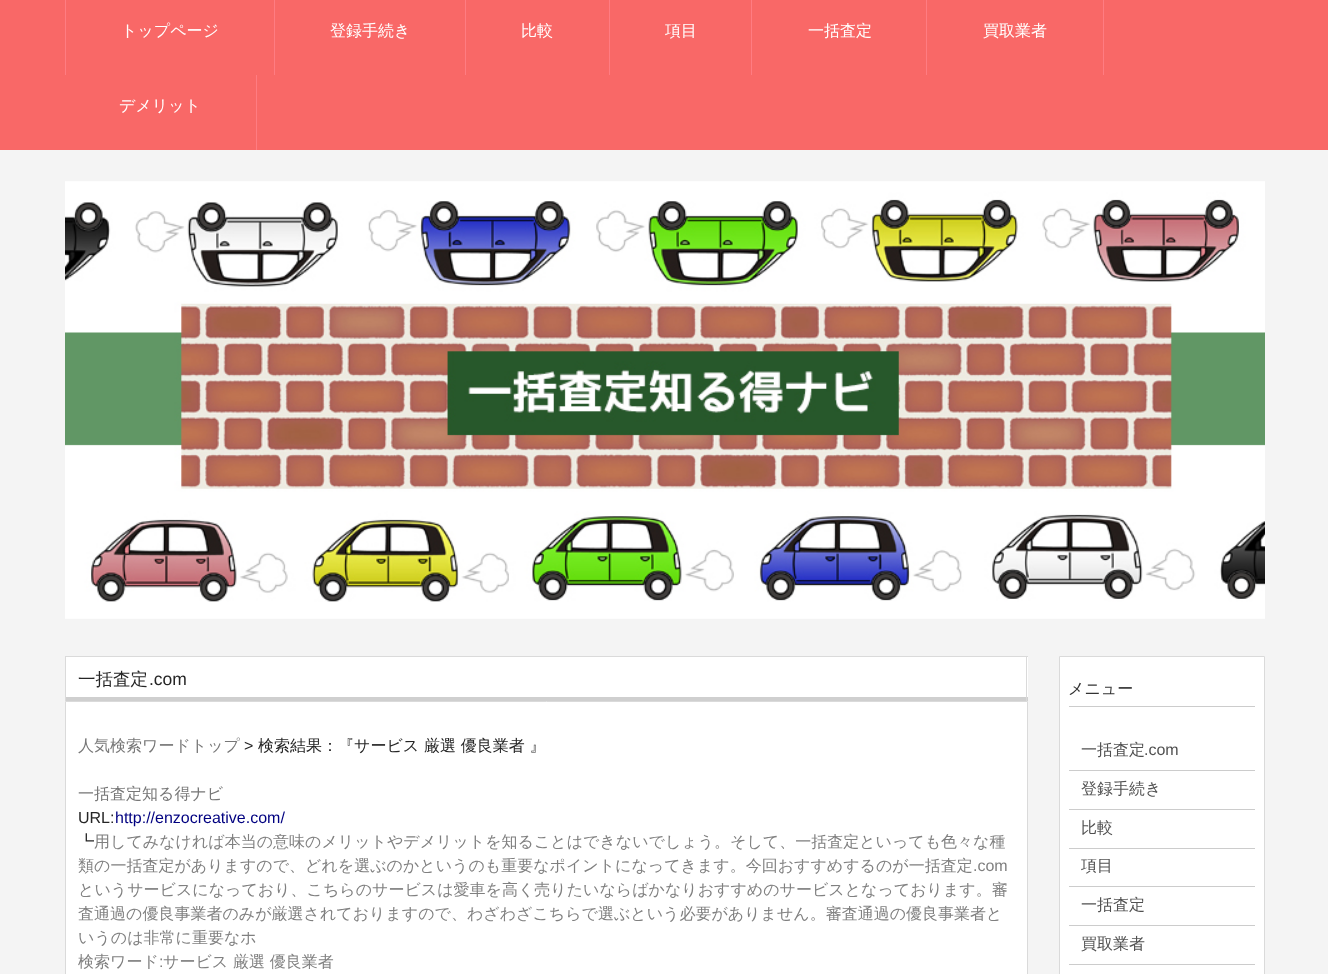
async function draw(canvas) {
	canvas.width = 1328;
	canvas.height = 974;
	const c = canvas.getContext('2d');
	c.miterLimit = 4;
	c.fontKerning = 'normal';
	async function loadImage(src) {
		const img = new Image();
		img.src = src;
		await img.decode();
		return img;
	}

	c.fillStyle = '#f4f4f4';
	c.fillRect(0, 0, 1328, 974);
	for (const [x, y, w, h, color] of [
		[0, 0, 1328, 150, '#f96867'],
		[274, 0, 1, 75, '#ff7c82'],
		[65, 0, 1, 75, '#ff7c82'],
	]) {
		c.fillStyle = color;
		c.fillRect(x, y, w, h);
	}
	c.font = '500 16px WenQuanYi Zen Hei';
	c.fillStyle = '#fff';
	c.fillText('トップページ', 121, 36);
	c.fillStyle = '#ff7c82';
	c.fillRect(465, 0, 1, 75);
	c.fillStyle = '#fff';
	c.fillText('登録手続き', 330, 36);
	c.fillStyle = '#ff7c82';
	c.fillRect(609, 0, 1, 75);
	c.fillStyle = '#fff';
	c.fillText('比較', 521, 36);
	c.fillStyle = '#ff7c82';
	c.fillRect(751, 0, 1, 75);
	c.fillStyle = '#fff';
	c.fillText('項目', 665, 36);
	c.fillStyle = '#ff7c82';
	c.fillRect(926, 0, 1, 75);
	c.fillStyle = '#fff';
	c.fillText('一括査定', 808, 36);
	c.fillStyle = '#ff7c82';
	c.fillRect(1103, 0, 1, 75);
	c.fillStyle = '#fff';
	c.fillText('買取業者', 983, 36);
	c.fillStyle = '#ff7c82';
	c.fillRect(256, 75, 1, 75);
	c.fillStyle = '#fff';
	c.fillText('デメリット', 119, 111);
	c.drawImage(await loadImage('img1.png'), 65, 181, 1200, 438);
	for (const [x, y, w, h, color] of [
		[66, 657, 962, 40, '#fff'],
		[65, 697, 963, 4, '#cfcfcf'],
		[65, 656, 963, 1, '#dadada'],
		[1026, 656, 1, 45, '#dadada'],
		[65, 656, 1, 45, '#dadada'],
	]) {
		c.fillStyle = color;
		c.fillRect(x, y, w, h);
	}
	c.font = '500 17.5px WenQuanYi Zen Hei';
	c.fillStyle = '#252525';
	c.fillText('一括査定', 78, 685);
	c.font = '17.5px Liberation Sans';
	c.fillText('.com', 149, 685);
	c.fillStyle = '#fff';
	c.beginPath();
	c.rect(65.5, 701.5, 962, 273);
	c.fill();
	c.strokeStyle = '#dadada';
	c.stroke();
	c.font = '500 16px WenQuanYi Zen Hei';
	c.fillStyle = '#777';
	c.fillText('人気検索ワードトップ', 78, 751);
	c.font = '16px Liberation Sans';
	c.fillStyle = '#252525';
	c.fillText('>', 244, 751);
	c.font = '500 16px WenQuanYi Zen Hei';
	c.fillText('検索結果：『サービス 厳選 優良業者 』', 258, 751);
	c.fillStyle = '#777';
	c.fillText('一括査定知る得ナビ', 78, 799);
	c.font = '16px Liberation Sans';
	c.fillStyle = '#252525';
	c.fillText('URL:', 78, 823);
	c.fillStyle = '#000080';
	c.fillText('http://enzocreative.com/', 115, 823);
	c.font = '500 16px WenQuanYi Zen Hei';
	c.fillStyle = '#252525';
	c.fillText('┗', 78, 847);
	c.fillStyle = '#808080';
	c.fillText('用してみなければ本当の意味のメリットやデメリットを知ることはできないでしょう。そして、一括査定といっても色々な種', 94, 847);
	c.fillText('類の一括査定がありますので、どれを選ぶのかというのも重要なポイントになってきます。今回おすすめするのが一括査定', 78, 871);
	c.font = '16px Liberation Sans';
	c.fillText('.com', 973, 871);
	c.font = '500 16px WenQuanYi Zen Hei';
	for (const [text, x, y] of [
		['というサービスになっており、こちらのサービスは愛車を高く売りたいならばかなりおすすめのサービスとなっております。審', 78, 895],
		['査通過の優良事業者のみが厳選されておりますので、わざわざこちらで選ぶという必要がありません。審査通過の優良事業者と', 78, 919],
		['いうのは非常に重要なホ', 78, 943],
		['検索ワード', 78, 967],
	]) {
		c.fillText(text, x, y);
	}
	c.font = '16px Liberation Sans';
	c.fillText(':', 159, 967);
	c.font = '500 16px WenQuanYi Zen Hei';
	c.fillText('サービス 厳選 優良業者', 163, 967);
	c.fillStyle = '#fff';
	c.beginPath();
	c.rect(1059.5, 656.5, 205, 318);
	c.fill();
	c.stroke();
	c.fillStyle = '#ccc';
	c.fillRect(1069, 706, 186, 1);
	c.fillStyle = '#333';
	c.fillText('メニュー', 1068, 694);
	c.fillStyle = '#ccc';
	c.fillRect(1069, 770, 186, 1);
	c.fillStyle = '#515151';
	c.fillText('一括査定', 1081, 755);
	c.font = '16px Liberation Sans';
	c.fillText('.com', 1144, 755);
	c.fillStyle = '#ccc';
	c.fillRect(1069, 809, 186, 1);
	c.font = '500 16px WenQuanYi Zen Hei';
	c.fillStyle = '#515151';
	c.fillText('登録手続き', 1081, 794);
	c.fillStyle = '#ccc';
	c.fillRect(1069, 848, 186, 1);
	c.fillStyle = '#515151';
	c.fillText('比較', 1081, 833);
	c.fillStyle = '#ccc';
	c.fillRect(1069, 886, 186, 1);
	c.fillStyle = '#515151';
	c.fillText('項目', 1081, 871);
	c.fillStyle = '#ccc';
	c.fillRect(1069, 925, 186, 1);
	c.fillStyle = '#515151';
	c.fillText('一括査定', 1081, 910);
	c.fillStyle = '#ccc';
	c.fillRect(1069, 964, 186, 1);
	c.fillStyle = '#515151';
	c.fillText('買取業者', 1081, 949);
}

draw(document.querySelector('canvas'));
